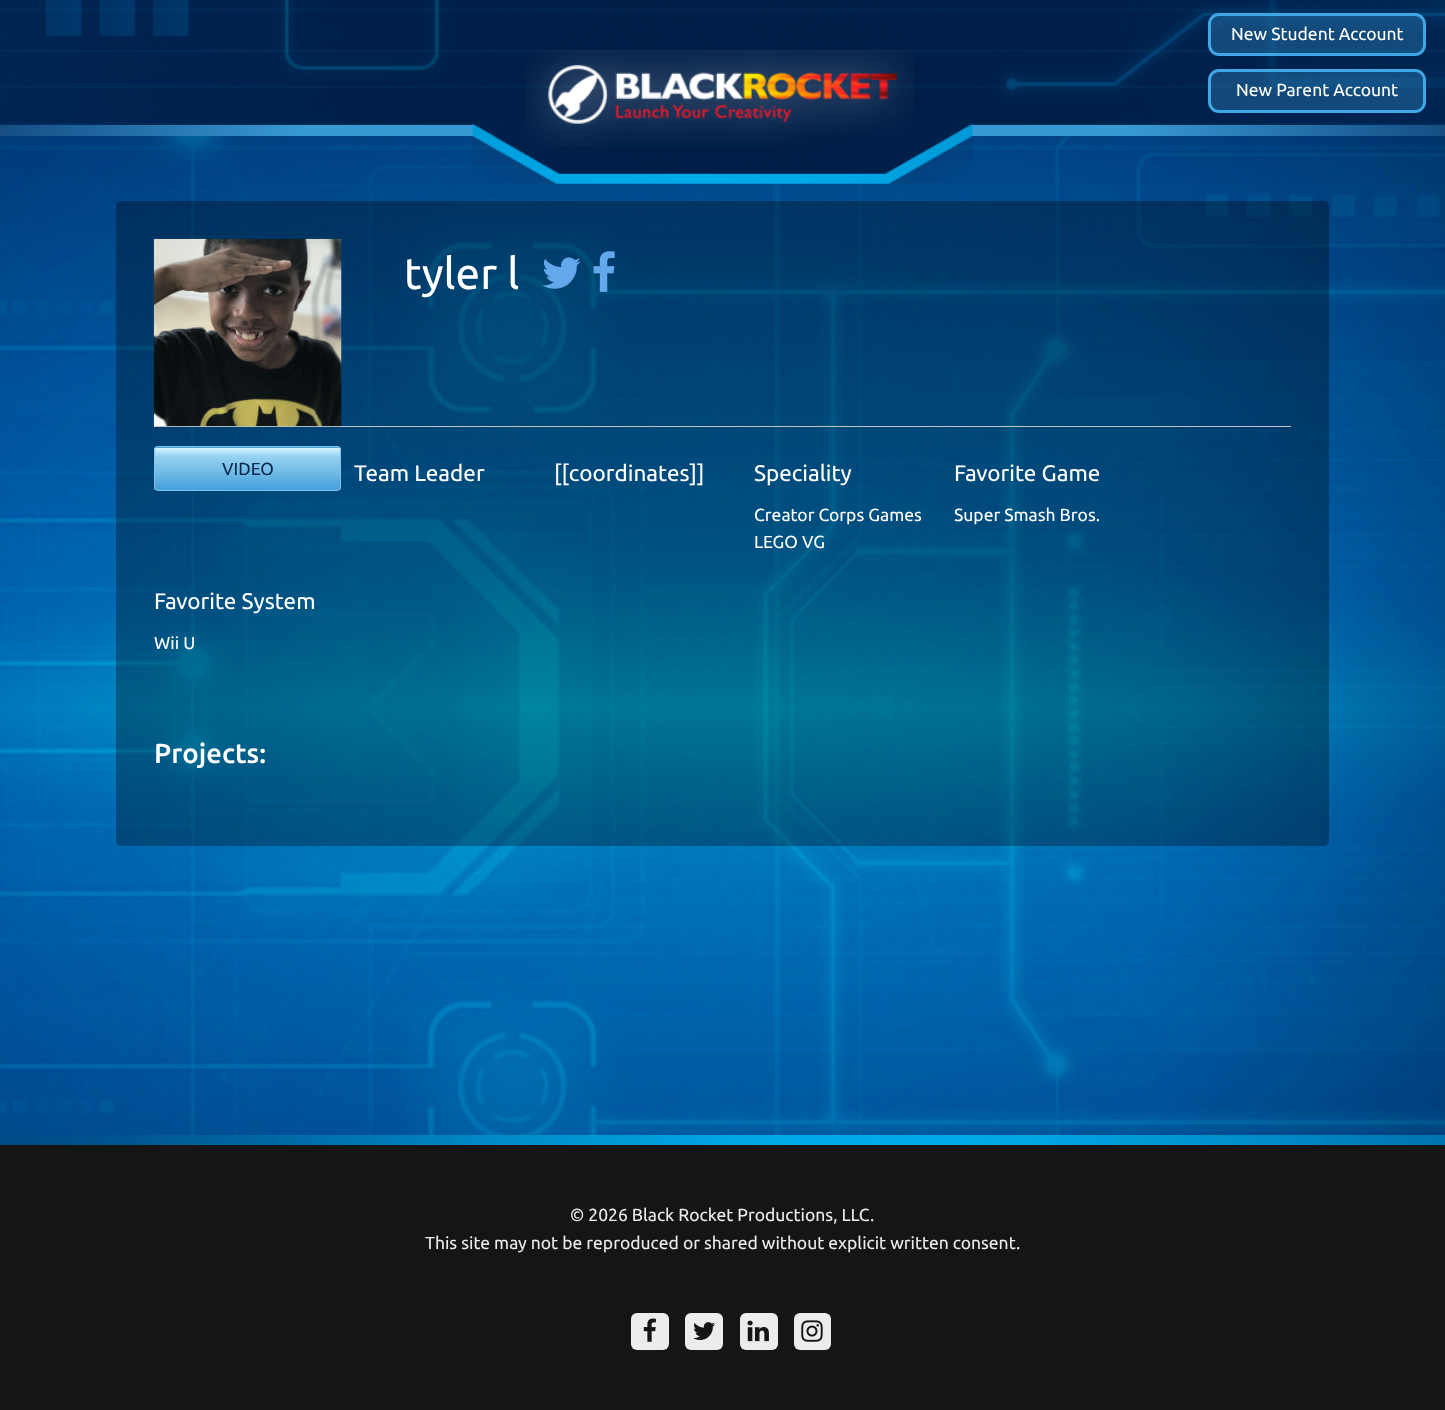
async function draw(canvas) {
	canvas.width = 1445;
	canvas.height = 1410;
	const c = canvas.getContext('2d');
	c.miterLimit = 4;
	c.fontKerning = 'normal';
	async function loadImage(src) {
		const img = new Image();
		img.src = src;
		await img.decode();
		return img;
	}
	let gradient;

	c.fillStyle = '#fff';
	c.fillRect(0, 0, 1445, 1410);
	c.drawImage(await loadImage('img1.png'), 0, 136, 1445, 999);
	c.drawImage(await loadImage('img2.png'), 0, 0, 1445, 125);
	gradient = c.createLinearGradient(0, 131, 1445, 131);
	gradient.addColorStop(0, '#154d84');
	gradient.addColorStop(0.21, '#3899d5');
	gradient.addColorStop(0.78, '#3899d5');
	gradient.addColorStop(1, '#154d84');
	c.fillStyle = gradient;
	c.fillRect(0, 125, 1445, 11);
	c.drawImage(await loadImage('img4.png'), 472, 123, 501, 62);
	c.drawImage(await loadImage('img3.png'), 525, 50, 389, 97);
	c.fillStyle = '#3fa7e54d';
	c.beginPath();
	c.roundRect(1209.5, 14.5, 215, 40, 9.5);
	c.fill();
	c.strokeStyle = '#3fa7e5';
	c.lineWidth = 3;
	c.stroke();
	c.font = '17.5px Ubuntu';
	c.fillStyle = '#fff';
	c.fillText('New Student Account', 1231, 40);
	c.fillStyle = '#3fa7e54d';
	c.beginPath();
	c.roundRect(1209.5, 70.5, 215, 41, 9.5);
	c.fill();
	c.stroke();
	c.fillStyle = '#fff';
	c.fillText('New Parent Account', 1236, 96);
	c.fillStyle = '#0000004d';
	c.beginPath();
	c.roundRect(116, 201, 1213, 645, 5);
	c.fill();
	c.fillStyle = '#c2c2c2';
	c.fillRect(154, 426, 1137, 1);
	c.drawImage(await loadImage('img5.png'), 153, 238, 189, 189);
	c.font = '44px Ubuntu';
	c.fillStyle = '#fff';
	c.fillText('tyler l', 404, 289);
	c.drawImage(await loadImage('img6.png'), 542, 257, 39, 32);
	c.drawImage(await loadImage('img7.png'), 593, 251, 22, 41);
	c.save();
	c.beginPath();
	c.roundRect(154, 446, 187, 45, 4);
	c.clip();
	gradient = c.createLinearGradient(248, 405, 248, 448);
	gradient.addColorStop(0, '#d5f5fe');
	gradient.addColorStop(0.19, '#99d2f0');
	gradient.addColorStop(1, '#43a1dc');
	c.fillStyle = gradient;
	c.fillRect(154, 446, 187, 2);
	gradient = c.createLinearGradient(248, 448, 248, 490);
	gradient.addColorStop(0, '#d5f5fe');
	gradient.addColorStop(0.19, '#99d2f0');
	gradient.addColorStop(1, '#43a1dc');
	c.fillStyle = gradient;
	c.fillRect(154, 448, 187, 42);
	c.restore();
	c.beginPath();
	c.roundRect(154.5, 446.5, 186, 44, 3.5);
	c.strokeStyle = '#83c1e8';
	c.lineWidth = 1;
	c.stroke();
	c.font = '17.5px Ubuntu';
	c.fillStyle = '#012449';
	c.fillText('VIDEO', 222, 475);
	c.font = '22.5px Ubuntu';
	c.fillStyle = '#fff';
	for (const [text, x, y] of [
		['Team Leader', 354, 481],
		['[[сoordinates]]', 554, 481],
		['Speciality', 754, 481],
	]) {
		c.fillText(text, x, y);
	}
	c.font = '17.5px Ubuntu';
	c.fillText('Creator Corps Games', 754, 521);
	c.fillText('LEGO VG', 754, 548);
	c.font = '22.5px Ubuntu';
	c.fillText('Favorite Game', 954, 481);
	c.font = '17.5px Ubuntu';
	c.fillText('Super Smash Bros.', 954, 521);
	c.font = '22.5px Ubuntu';
	c.fillText('Favorite System', 154, 609);
	c.font = '17.5px Ubuntu';
	c.fillText('Wii U', 154, 649);
	c.font = '500 27.5px Ubuntu';
	c.fillText('Projects:', 154, 763);
	c.fillStyle = '#151515';
	c.fillRect(0, 1145, 1445, 265);
	c.drawImage(await loadImage('img8.png'), 0, 1135, 1445, 10);
	c.font = '17.5px Ubuntu';
	c.fillStyle = '#ececec';
	c.fillText('© 2026 Black Rocket Productions, LLC.', 570, 1221);
	c.fillText('This site may not be reproduced or shared without explicit written consent.', 425, 1249);
	c.beginPath();
	c.roundRect(631, 1313, 38, 37, 6);
	c.fill();
	c.drawImage(await loadImage('img9.png'), 643, 1318, 13, 24);
	c.beginPath();
	c.roundRect(685, 1313, 38, 37, 6);
	c.fill();
	c.drawImage(await loadImage('img10.png'), 693, 1322, 22, 18);
	c.beginPath();
	c.roundRect(740, 1313, 38, 37, 6);
	c.fill();
	c.drawImage(await loadImage('img11.png'), 747, 1320, 22, 22);
	c.beginPath();
	c.roundRect(794, 1313, 37, 37, 6);
	c.fill();
	c.drawImage(await loadImage('img12.png'), 801, 1320, 22, 22);
}

draw(document.querySelector('canvas'));
